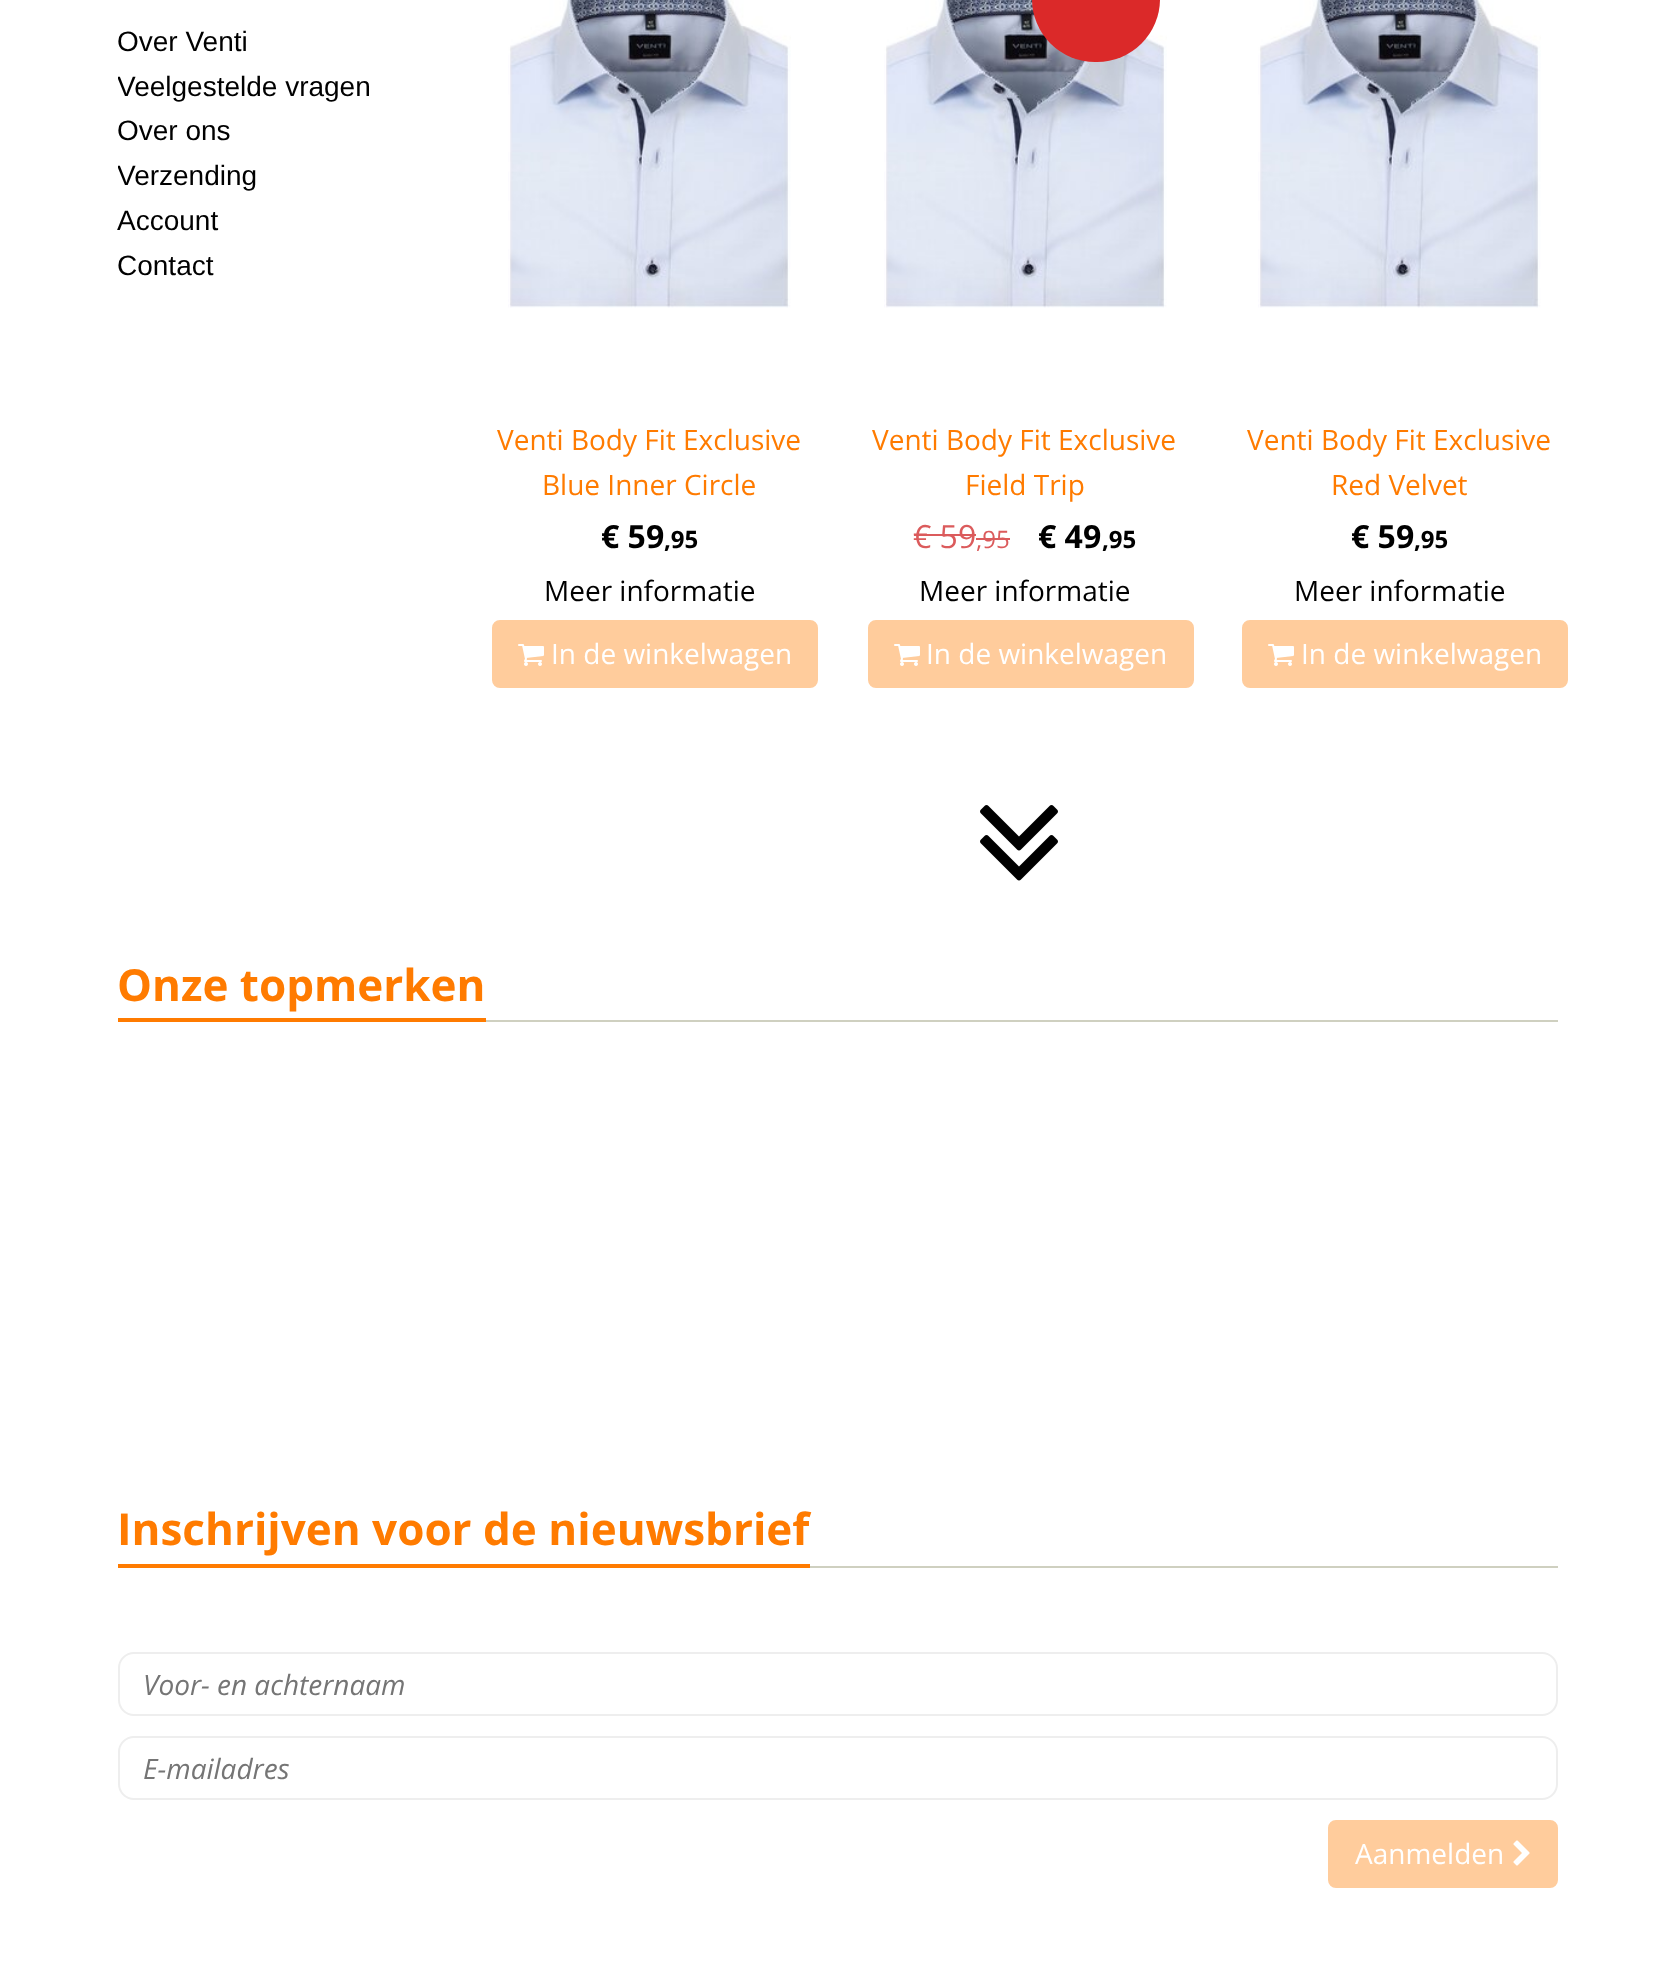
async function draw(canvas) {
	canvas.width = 1673;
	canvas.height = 1985;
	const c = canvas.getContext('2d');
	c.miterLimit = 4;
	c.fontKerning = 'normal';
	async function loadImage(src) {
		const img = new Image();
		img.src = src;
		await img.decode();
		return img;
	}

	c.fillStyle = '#fff';
	c.fillRect(0, 0, 1673, 1985);
	c.font = '28px Liberation Sans';
	c.fillStyle = '#000';
	c.fillText('Over Venti', 117, 51);
	c.save();
	c.beginPath();
	c.rect(118, 0, 314, 378);
	c.clip();
	c.fillText('Veelgestelde vragen', 117, 96);
	c.restore();
	c.fillText('Over ons', 117, 140);
	c.save();
	c.beginPath();
	c.rect(118, 0, 314, 378);
	c.clip();
	c.fillText('Verzending', 117, 185);
	c.restore();
	c.fillText('Account', 117, 230);
	c.fillText('Contact', 117, 275);
	c.drawImage(await loadImage('img1.png'), 508, 0, 283, 308);
	c.font = '28px Open Sans';
	c.fillStyle = '#ff7b00';
	c.fillText('Venti Body Fit Exclusive', 497, 450);
	c.fillText('Blue Inner Circle', 542, 495);
	c.font = 'bold 32px Open Sans';
	c.fillStyle = '#000';
	c.fillText('€ 59', 601, 548);
	c.font = 'bold 24px Open Sans';
	c.fillText(',95', 664, 548);
	c.font = '28px Open Sans';
	c.fillText('Meer informatie', 544, 601);
	c.fillStyle = '#ffcc9c';
	c.beginPath();
	c.roundRect(493, 621, 324, 66, 7);
	c.fill();
	c.strokeStyle = '#ffcc9c';
	c.lineWidth = 2;
	c.stroke();
	c.drawImage(await loadImage('img2.png'), 518, 644, 26, 22);
	c.fillStyle = '#fff';
	c.fillText('In de winkelwagen', 551, 664);
	c.drawImage(await loadImage('img3.png'), 884, 0, 283, 308);
	c.fillStyle = '#db2929';
	c.beginPath();
	c.roundRect(1032, -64, 128, 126, 64);
	c.fill();
	c.fillStyle = '#ff7b00';
	c.fillText('Venti Body Fit Exclusive', 872, 450);
	c.fillText('Field Trip', 965, 495);
	c.font = '32px Open Sans';
	c.fillStyle = '#db5b5c';
	c.fillText('€ 59', 913, 548);
	c.fillRect(914, 534, 62, 2);
	c.font = '24px Open Sans';
	c.fillText(',95', 976, 548);
	c.fillRect(976, 538, 34, 2);
	c.font = 'bold 32px Open Sans';
	c.fillStyle = '#000';
	c.fillText('€ 49', 1038, 548);
	c.font = 'bold 24px Open Sans';
	c.fillText(',95', 1102, 548);
	c.font = '28px Open Sans';
	c.fillText('Meer informatie', 919, 601);
	c.fillStyle = '#ffcc9c';
	c.beginPath();
	c.roundRect(869, 621, 324, 66, 7);
	c.fill();
	c.stroke();
	c.drawImage(await loadImage('img2.png'), 894, 644, 26, 22);
	c.fillStyle = '#fff';
	c.fillText('In de winkelwagen', 926, 664);
	c.drawImage(await loadImage('img1.png'), 1258, 0, 283, 308);
	c.fillStyle = '#ff7b00';
	c.fillText('Venti Body Fit Exclusive', 1247, 450);
	c.fillText('Red Velvet', 1331, 495);
	c.font = 'bold 32px Open Sans';
	c.fillStyle = '#000';
	c.fillText('€ 59', 1351, 548);
	c.font = 'bold 24px Open Sans';
	c.fillText(',95', 1414, 548);
	c.font = '28px Open Sans';
	c.fillText('Meer informatie', 1294, 601);
	c.fillStyle = '#ffcc9c';
	c.beginPath();
	c.roundRect(1243, 621, 324, 66, 7);
	c.fill();
	c.stroke();
	c.drawImage(await loadImage('img2.png'), 1268, 644, 26, 22);
	c.fillStyle = '#fff';
	c.fillText('In de winkelwagen', 1301, 664);
	c.drawImage(await loadImage('img4.png'), 980, 805, 78, 76);
	c.fillStyle = '#ff7b00';
	c.fillRect(118, 1018, 368, 4);
	c.font = 'bold 44px Open Sans';
	c.fillText('Onze topmerken', 117, 1001);
	c.fillStyle = '#cfd0c0';
	c.fillRect(486, 1020, 1072, 2);
	c.fillStyle = '#ff7b00';
	c.fillRect(118, 1564, 692, 4);
	c.fillText('Inschrijven voor de nieuwsbrief', 117, 1545);
	c.fillStyle = '#cfd0c0';
	c.fillRect(810, 1566, 748, 2);
	c.beginPath();
	c.roundRect(119, 1653, 1438, 62, 15);
	c.strokeStyle = '#eee';
	c.stroke();
	c.font = 'italic 28px Open Sans';
	c.fillStyle = '#757575';
	c.fillText('Voor- en achternaam', 143, 1695);
	c.beginPath();
	c.roundRect(119, 1737, 1438, 62, 15);
	c.stroke();
	c.fillText('E-mailadres', 143, 1779);
	c.fillStyle = '#ffcc9c';
	c.beginPath();
	c.roundRect(1329, 1821, 228, 66, 7);
	c.fill();
	c.strokeStyle = '#ffcc9c';
	c.stroke();
	c.font = '28px Open Sans';
	c.fillStyle = '#fff';
	c.fillText('Aanmelden', 1355, 1864);
	c.drawImage(await loadImage('img5.png'), 1513, 1840, 17, 26);
}

draw(document.querySelector('canvas'));
